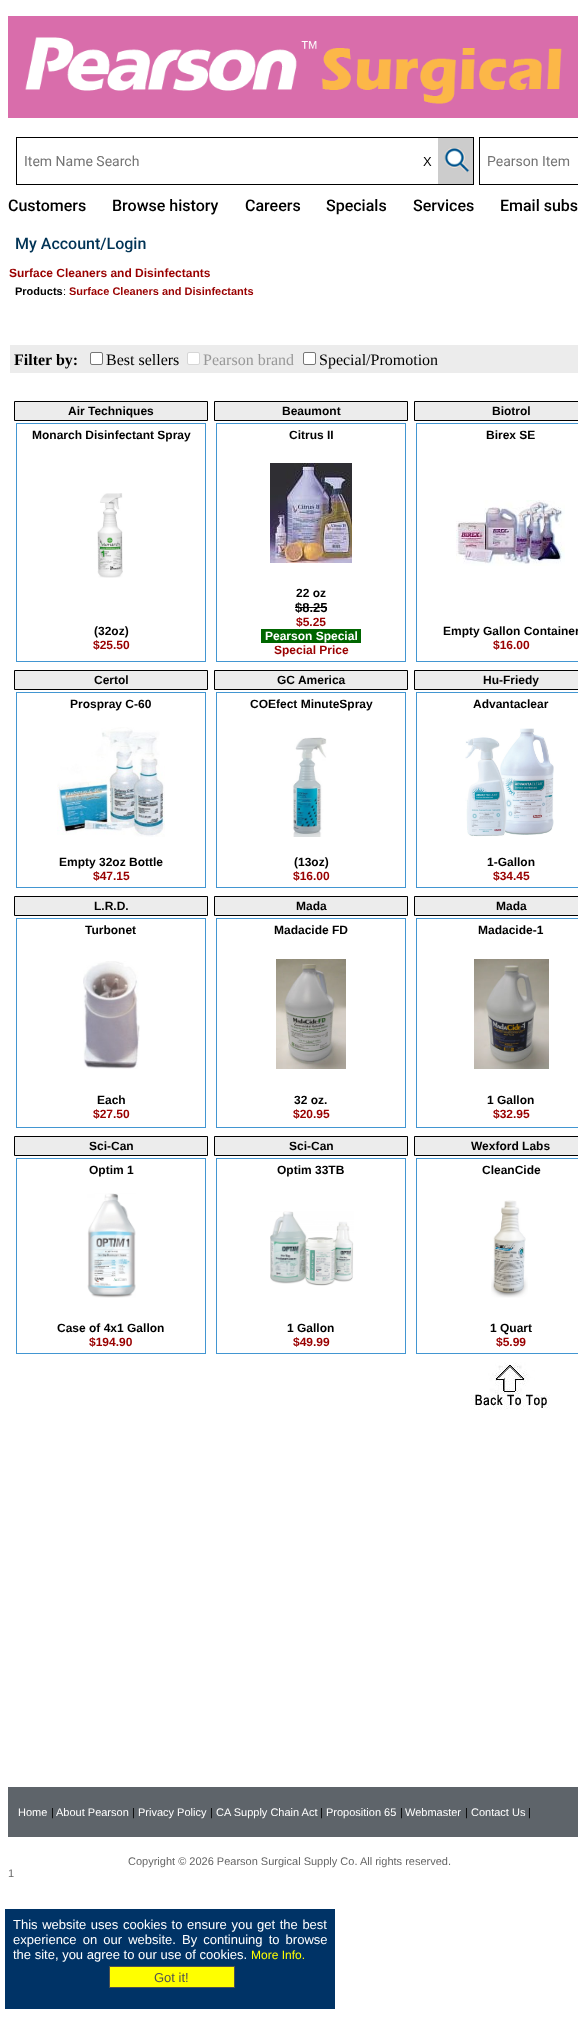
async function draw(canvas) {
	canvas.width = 578;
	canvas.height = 2024;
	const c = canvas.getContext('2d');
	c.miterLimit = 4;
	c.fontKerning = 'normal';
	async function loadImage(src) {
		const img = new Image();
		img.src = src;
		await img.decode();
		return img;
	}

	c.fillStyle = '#fff';
	c.fillRect(0, 0, 578, 2024);
	c.drawImage(await loadImage('img1.png'), 8, 16, 570, 102);
	c.strokeStyle = '#000';
	c.strokeRect(16.5, 137.5, 457, 47);
	c.font = '14px Roboto';
	c.fillStyle = '#757575';
	c.fillText('Item Name Search', 24, 166);
	c.font = '13px Liberation Sans';
	c.fillStyle = '#000';
	c.fillText('X', 423, 166);
	c.fillStyle = '#ccc';
	c.fillRect(438, 138, 35, 46);
	c.drawImage(await loadImage('img2.png'), 443, 143, 27, 36);
	c.strokeRect(479.5, 137.5, 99, 47);
	c.font = '14px Roboto';
	c.fillStyle = '#757575';
	c.fillText('Pearson Item', 487, 166);
	c.font = '500 16px Roboto';
	c.fillStyle = '#000';
	for (const [text, x, y] of [
		['Customers', 8, 211],
		['Browse history', 112, 211],
		['Careers', 245, 211],
		['Specials', 326, 211],
		['Services', 413, 211],
		['Email subs', 500, 211],
	]) {
		c.fillText(text, x, y);
	}
	c.fillStyle = '#035';
	c.fillText('My Account/Login', 15, 249);
	c.font = 'bold 12px Liberation Sans';
	c.fillStyle = '#900';
	c.fillText('Surface Cleaners and Disinfectants', 9, 277);
	c.font = 'bold 11px Liberation Sans';
	c.fillStyle = '#000';
	c.fillText('Products', 15, 295);
	c.font = '11px Liberation Sans';
	c.fillText(':', 63, 295);
	c.font = 'bold 11px Liberation Sans';
	c.fillStyle = '#900';
	c.fillText('Surface Cleaners and Disinfectants', 69, 295);
	c.fillStyle = '#ececec';
	c.fillRect(10, 345, 568, 28);
	c.font = 'bold 16px Liberation Serif';
	c.fillStyle = '#000';
	c.fillText('Filter by:', 14, 365);
	c.fillStyle = '#fff';
	c.beginPath();
	c.roundRect(90.5, 352.5, 12, 12, 1.5);
	c.fill();
	c.strokeStyle = '#767676';
	c.stroke();
	c.font = '16px Liberation Serif';
	c.fillStyle = '#000';
	c.fillText('Best sellers', 106, 365);
	c.fillStyle = '#fff';
	c.beginPath();
	c.roundRect(187.5, 352.5, 12, 12, 1.5);
	c.fill();
	c.strokeStyle = '#d6d6d6';
	c.stroke();
	c.fillStyle = '#999';
	c.fillText('Pearson brand', 203, 365);
	c.fillStyle = '#fff';
	c.beginPath();
	c.roundRect(303.5, 352.5, 12, 12, 1.5);
	c.fill();
	c.strokeStyle = '#767676';
	c.stroke();
	c.fillStyle = '#000';
	c.fillText('Special/Promotion', 319, 365);
	c.fillStyle = '#ececec';
	c.beginPath();
	c.rect(14.5, 401.5, 193, 19);
	c.fill();
	c.strokeStyle = '#000';
	c.stroke();
	c.font = 'bold 12px Liberation Sans';
	c.fillStyle = '#000';
	c.fillText('Air Techniques', 68, 415);
	c.strokeStyle = '#4296d2';
	c.strokeRect(16.5, 423.5, 189, 238);
	c.fillText('Monarch Disinfectant Spray', 32, 439);
	c.drawImage(await loadImage('img3.png'), 97, 493, 26, 85);
	c.fillText('(32oz)', 94, 635);
	c.fillStyle = '#900';
	c.fillText('$25.50', 93, 649);
	c.fillStyle = '#ececec';
	c.beginPath();
	c.rect(214.5, 401.5, 193, 19);
	c.fill();
	c.strokeStyle = '#000';
	c.stroke();
	c.fillStyle = '#000';
	c.fillText('Beaumont', 282, 415);
	c.strokeStyle = '#4296d2';
	c.strokeRect(216.5, 423.5, 189, 238);
	c.fillText('Citrus II', 289, 439);
	c.drawImage(await loadImage('img4.png'), 270, 463, 82, 100);
	c.fillText('22 oz', 296, 597);
	c.font = 'bold 13px Liberation Sans';
	c.fillText('$8.25', 295, 612);
	c.fillRect(295, 607, 32, 1);
	c.font = 'bold 12px Liberation Sans';
	c.fillStyle = '#900';
	c.fillText('$5.25', 296, 626);
	c.fillStyle = '#060';
	c.fillRect(261, 629, 100, 14);
	c.fillStyle = '#fff';
	c.fillText('Pearson Special', 265, 640);
	c.fillStyle = '#900';
	c.fillText('Special Price', 274, 654);
	c.fillStyle = '#ececec';
	c.beginPath();
	c.rect(414.5, 401.5, 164, 19);
	c.fill();
	c.strokeStyle = '#000';
	c.stroke();
	c.fillStyle = '#000';
	c.fillText('Biotrol', 492, 415);
	c.strokeStyle = '#4296d2';
	c.strokeRect(416.5, 423.5, 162, 238);
	c.fillText('Birex SE', 486, 439);
	c.drawImage(await loadImage('img5.png'), 456, 500, 109, 66);
	c.fillText('Empty Gallon Container', 443, 635);
	c.fillStyle = '#900';
	c.fillText('$16.00', 493, 649);
	c.fillStyle = '#ececec';
	c.beginPath();
	c.rect(14.5, 670.5, 193, 19);
	c.fill();
	c.strokeStyle = '#000';
	c.stroke();
	c.fillStyle = '#000';
	c.fillText('Certol', 94, 684);
	c.strokeStyle = '#4296d2';
	c.strokeRect(16.5, 692.5, 189, 195);
	c.fillText('Prospray C-60', 70, 708);
	c.drawImage(await loadImage('img6.png'), 57, 727, 108, 110);
	c.fillText('Empty 32oz Bottle', 59, 866);
	c.fillStyle = '#900';
	c.fillText('$47.15', 93, 880);
	c.fillStyle = '#ececec';
	c.beginPath();
	c.rect(214.5, 670.5, 193, 19);
	c.fill();
	c.strokeStyle = '#000';
	c.stroke();
	c.fillStyle = '#000';
	c.fillText('GC America', 277, 684);
	c.strokeStyle = '#4296d2';
	c.strokeRect(216.5, 692.5, 189, 195);
	c.fillText('COEfect MinuteSpray', 250, 708);
	c.drawImage(await loadImage('img7.png'), 292, 737, 35, 100);
	c.fillText('(13oz)', 294, 866);
	c.fillStyle = '#900';
	c.fillText('$16.00', 293, 880);
	c.fillStyle = '#ececec';
	c.beginPath();
	c.rect(414.5, 670.5, 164, 19);
	c.fill();
	c.strokeStyle = '#000';
	c.stroke();
	c.fillStyle = '#000';
	c.fillText('Hu-Friedy', 483, 684);
	c.strokeStyle = '#4296d2';
	c.strokeRect(416.5, 692.5, 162, 195);
	c.fillText('Advantaclear', 473, 708);
	c.drawImage(await loadImage('img8.png'), 465, 728, 89, 109);
	c.fillText('1-Gallon', 487, 866);
	c.fillStyle = '#900';
	c.fillText('$34.45', 493, 880);
	c.fillStyle = '#ececec';
	c.beginPath();
	c.rect(14.5, 896.5, 193, 19);
	c.fill();
	c.strokeStyle = '#000';
	c.stroke();
	c.fillStyle = '#000';
	c.fillText('L.R.D.', 94, 910);
	c.strokeStyle = '#4296d2';
	c.strokeRect(16.5, 918.5, 189, 209);
	c.fillText('Turbonet', 85, 934);
	c.drawImage(await loadImage('img9.png'), 83, 961, 57, 108);
	c.fillText('Each', 97, 1104);
	c.fillStyle = '#900';
	c.fillText('$27.50', 93, 1118);
	c.fillStyle = '#ececec';
	c.beginPath();
	c.rect(214.5, 896.5, 193, 19);
	c.fill();
	c.strokeStyle = '#000';
	c.stroke();
	c.fillStyle = '#000';
	c.fillText('Mada', 296, 910);
	c.strokeStyle = '#4296d2';
	c.strokeRect(216.5, 918.5, 189, 209);
	c.fillText('Madacide FD', 274, 934);
	c.drawImage(await loadImage('img10.png'), 276, 959, 70, 110);
	c.fillText('32 oz.', 294, 1104);
	c.fillStyle = '#900';
	c.fillText('$20.95', 293, 1118);
	c.fillStyle = '#ececec';
	c.beginPath();
	c.rect(414.5, 896.5, 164, 19);
	c.fill();
	c.strokeStyle = '#000';
	c.stroke();
	c.fillStyle = '#000';
	c.fillText('Mada', 496, 910);
	c.strokeStyle = '#4296d2';
	c.strokeRect(416.5, 918.5, 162, 209);
	c.fillText('Madacide-1', 478, 934);
	c.drawImage(await loadImage('img11.png'), 474, 959, 75, 110);
	c.fillText('1 Gallon', 487, 1104);
	c.fillStyle = '#900';
	c.fillText('$32.95', 493, 1118);
	c.fillStyle = '#ececec';
	c.beginPath();
	c.rect(14.5, 1136.5, 193, 19);
	c.fill();
	c.strokeStyle = '#000';
	c.stroke();
	c.fillStyle = '#000';
	c.fillText('Sci-Can', 89, 1150);
	c.strokeStyle = '#4296d2';
	c.strokeRect(16.5, 1158.5, 189, 195);
	c.fillText('Optim 1', 89, 1174);
	c.drawImage(await loadImage('img12.png'), 87, 1193, 49, 105);
	c.fillText('Case of 4x1 Gallon', 57, 1332);
	c.fillStyle = '#900';
	c.fillText('$194.90', 89, 1346);
	c.fillStyle = '#ececec';
	c.beginPath();
	c.rect(214.5, 1136.5, 193, 19);
	c.fill();
	c.strokeStyle = '#000';
	c.stroke();
	c.fillStyle = '#000';
	c.fillText('Sci-Can', 289, 1150);
	c.strokeStyle = '#4296d2';
	c.strokeRect(216.5, 1158.5, 189, 195);
	c.fillText('Optim 33TB', 277, 1174);
	c.drawImage(await loadImage('img13.png'), 270, 1211, 84, 75);
	c.fillText('1 Gallon', 287, 1332);
	c.fillStyle = '#900';
	c.fillText('$49.99', 293, 1346);
	c.fillStyle = '#ececec';
	c.beginPath();
	c.rect(414.5, 1136.5, 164, 19);
	c.fill();
	c.strokeStyle = '#000';
	c.stroke();
	c.fillStyle = '#000';
	c.fillText('Wexford Labs', 471, 1150);
	c.strokeStyle = '#4296d2';
	c.strokeRect(416.5, 1158.5, 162, 195);
	c.fillText('CleanCide', 482, 1174);
	c.drawImage(await loadImage('img14.png'), 491, 1200, 37, 98);
	c.fillText('1 Quart', 490, 1332);
	c.fillStyle = '#900';
	c.fillText('$5.99', 496, 1346);
	c.drawImage(await loadImage('img15.png'), 471, 1362, 79, 48);
	c.fillStyle = '#5e646a';
	c.fillRect(8, 1787, 570, 50);
	c.font = '11px Liberation Sans';
	c.fillStyle = '#fff';
	c.fillText('Home', 18, 1816);
	c.fillStyle = '#000';
	c.fillText('|', 51, 1816);
	c.fillStyle = '#fff';
	c.fillText('About Pearson', 56, 1816);
	c.fillStyle = '#000';
	c.fillText('|', 132, 1816);
	c.fillStyle = '#fff';
	c.fillText('Privacy Policy', 138, 1816);
	c.fillStyle = '#000';
	c.fillText('|', 210, 1816);
	c.fillStyle = '#fff';
	c.fillText('CA Supply Chain Act', 216, 1816);
	c.fillStyle = '#000';
	c.fillText('|', 320, 1816);
	c.fillStyle = '#fff';
	c.fillText('Proposition 65', 326, 1816);
	c.fillStyle = '#000';
	c.fillText('|', 400, 1816);
	c.fillStyle = '#fff';
	c.fillText('Webmaster', 405, 1816);
	c.fillStyle = '#000';
	c.fillText('|', 465, 1816);
	c.fillStyle = '#fff';
	c.fillText('Contact Us', 471, 1816);
	c.fillStyle = '#000';
	c.fillText('|', 528, 1816);
	c.fillStyle = '#666';
	c.fillText('Copyright © 2026 Pearson Surgical Supply Co. All rights reserved.', 128, 1865);
	c.fillText('1', 8, 1877);
	c.fillStyle = '#036';
	c.fillRect(5, 1909, 330, 100);
	c.wordSpacing = '1px';
	c.font = '13px Liberation Sans';
	c.fillStyle = '#fff';
	c.fillText('This website uses cookies to ensure you get the best', 13, 1929);
	c.wordSpacing = '2.5px';
	c.fillText('experience on our website. By continuing to browse', 13, 1944);
	c.wordSpacing = '0px';
	c.fillText('the site, you agree to our use of cookies.', 13, 1959);
	c.font = '12px Liberation Sans';
	c.fillStyle = '#ff0';
	c.fillText('More Info.', 251, 1959);
	c.beginPath();
	c.rect(109.5, 1966.5, 125, 21);
	c.fill();
	c.strokeStyle = '#505050';
	c.stroke();
	c.font = '13px Liberation Sans';
	c.fillStyle = '#505050';
	c.fillText('Got it!', 154, 1982);
}

draw(document.querySelector('canvas'));
